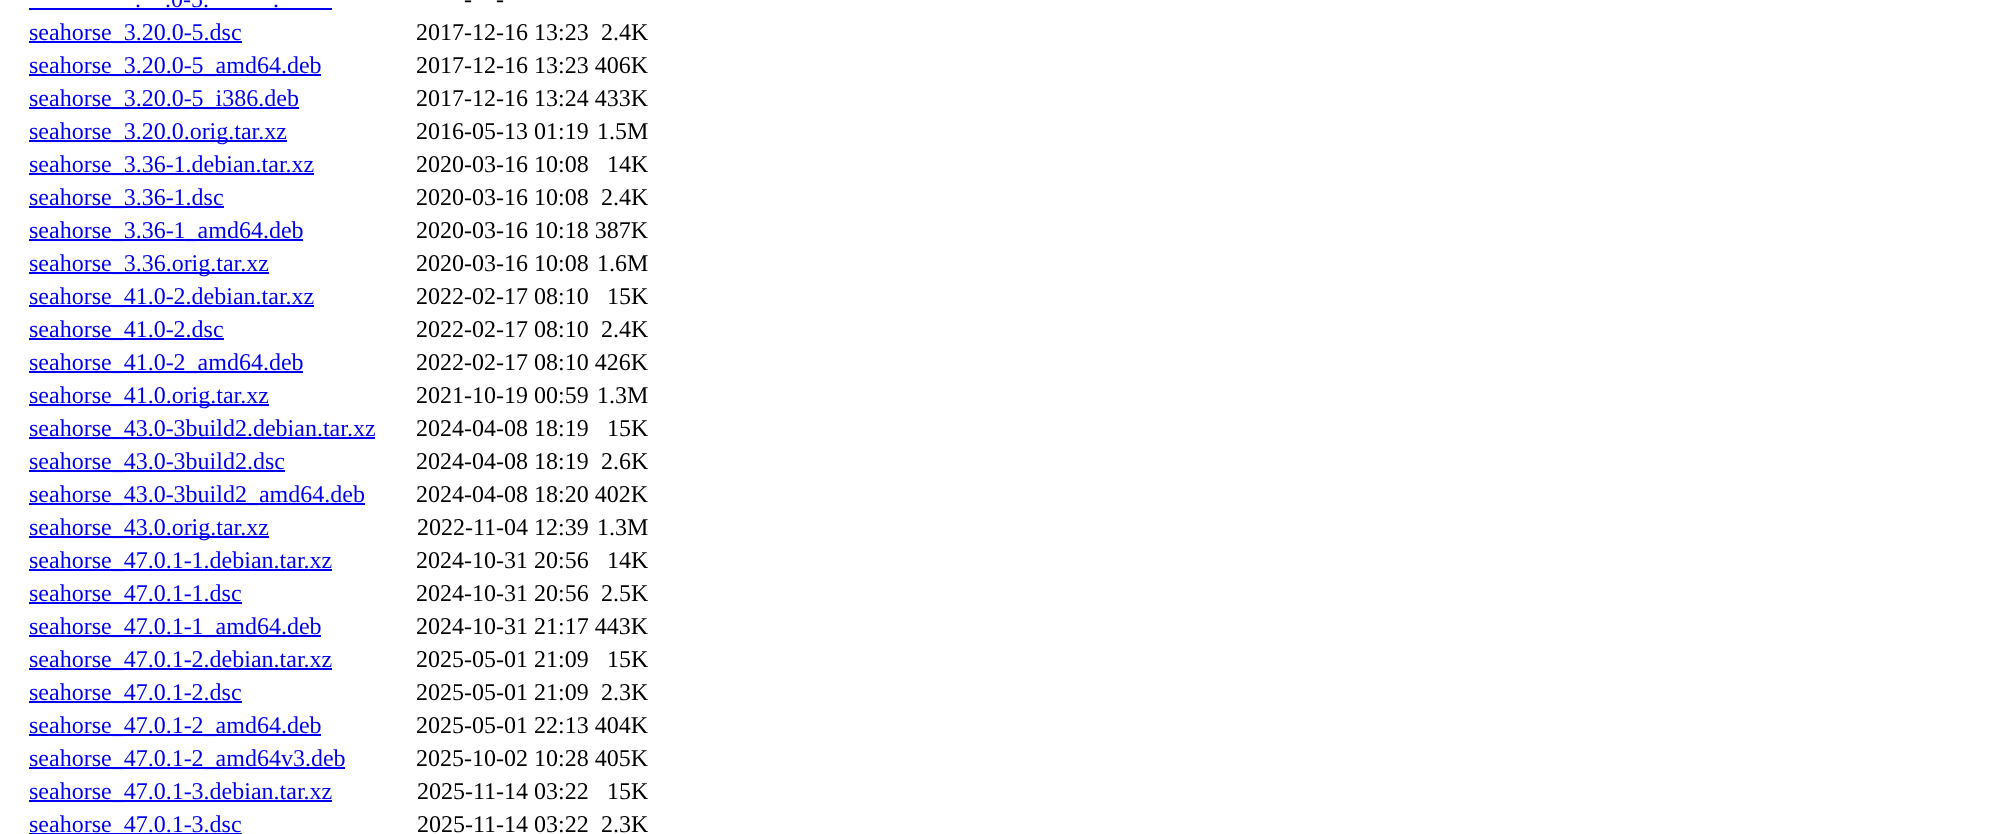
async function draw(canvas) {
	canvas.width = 2016;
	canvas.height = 834;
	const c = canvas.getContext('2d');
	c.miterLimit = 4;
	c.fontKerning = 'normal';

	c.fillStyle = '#fff';
	c.fillRect(0, 0, 2016, 834);
	c.font = '24px Liberation Serif';
	c.fillStyle = '#00e';
	c.fillText('.', 135, 7);
	c.fillRect(29, 8, 303, 2);
	c.fillText('.0-5.', 165, 7);
	c.fillText('.', 273, 7);
	c.fillStyle = '#000';
	c.fillText('-', 464, 7);
	c.fillText('-', 496, 7);
	c.fillStyle = '#00e';
	c.fillRect(29, 41, 213, 2);
	c.fillText('seahorse_3.20.0-5.dsc', 29, 40);
	c.fillStyle = '#000';
	c.fillText('2017-12-16 13:23', 416, 40);
	c.fillText('2.4K', 601, 40);
	c.fillStyle = '#00e';
	c.fillRect(29, 74, 292, 2);
	c.fillText('seahorse_3.20.0-5_amd64.deb', 29, 73);
	c.fillStyle = '#000';
	c.fillText('2017-12-16 13:23 406K', 416, 73);
	c.fillStyle = '#00e';
	c.fillRect(29, 107, 270, 2);
	c.fillText('seahorse_3.20.0-5_i386.deb', 29, 106);
	c.fillStyle = '#000';
	c.fillText('2017-12-16 13:24 433K', 416, 106);
	c.fillStyle = '#00e';
	c.fillRect(29, 140, 258, 2);
	c.fillText('seahorse_3.20.0.orig.tar.xz', 29, 139);
	c.fillStyle = '#000';
	c.fillText('2016-05-13 01:19', 416, 139);
	c.fillText('1.5M', 597, 139);
	c.fillStyle = '#00e';
	c.fillRect(29, 173, 285, 2);
	c.fillText('seahorse_3.36-1.debian.tar.xz', 29, 172);
	c.fillStyle = '#000';
	c.fillText('2020-03-16 10:08', 416, 172);
	c.fillText('14K', 607, 172);
	c.fillStyle = '#00e';
	c.fillRect(29, 206, 195, 2);
	c.fillText('seahorse_3.36-1.dsc', 29, 205);
	c.fillStyle = '#000';
	c.fillText('2020-03-16 10:08', 416, 205);
	c.fillText('2.4K', 601, 205);
	c.fillStyle = '#00e';
	c.fillRect(29, 239, 274, 2);
	c.fillText('seahorse_3.36-1_amd64.deb', 29, 238);
	c.fillStyle = '#000';
	c.fillText('2020-03-16 10:18 387K', 416, 238);
	c.fillStyle = '#00e';
	c.fillRect(29, 272, 240, 2);
	c.fillText('seahorse_3.36.orig.tar.xz', 29, 271);
	c.fillStyle = '#000';
	c.fillText('2020-03-16 10:08', 416, 271);
	c.fillText('1.6M', 597, 271);
	c.fillStyle = '#00e';
	c.fillRect(29, 305, 285, 2);
	c.fillText('seahorse_41.0-2.debian.tar.xz', 29, 304);
	c.fillStyle = '#000';
	c.fillText('2022-02-17 08:10', 416, 304);
	c.fillText('15K', 607, 304);
	c.fillStyle = '#00e';
	c.fillRect(29, 338, 195, 2);
	c.fillText('seahorse_41.0-2.dsc', 29, 337);
	c.fillStyle = '#000';
	c.fillText('2022-02-17 08:10', 416, 337);
	c.fillText('2.4K', 601, 337);
	c.fillStyle = '#00e';
	c.fillRect(29, 371, 274, 2);
	c.fillText('seahorse_41.0-2_amd64.deb', 29, 370);
	c.fillStyle = '#000';
	c.fillText('2022-02-17 08:10 426K', 416, 370);
	c.fillStyle = '#00e';
	c.fillRect(29, 404, 240, 2);
	c.fillText('seahorse_41.0.orig.tar.xz', 29, 403);
	c.fillStyle = '#000';
	c.fillText('2021-10-19 00:59', 416, 403);
	c.fillText('1.3M', 597, 403);
	c.fillStyle = '#00e';
	c.fillRect(29, 437, 346, 2);
	c.fillText('seahorse_43.0-3build2.debian.tar.xz', 29, 436);
	c.fillStyle = '#000';
	c.fillText('2024-04-08 18:19', 416, 436);
	c.fillText('15K', 607, 436);
	c.fillStyle = '#00e';
	c.fillRect(29, 470, 256, 2);
	c.fillText('seahorse_43.0-3build2.dsc', 29, 469);
	c.fillStyle = '#000';
	c.fillText('2024-04-08 18:19', 416, 469);
	c.fillText('2.6K', 601, 469);
	c.fillStyle = '#00e';
	c.fillRect(29, 503, 336, 2);
	c.fillText('seahorse_43.0-3build2_amd64.deb', 29, 502);
	c.fillStyle = '#000';
	c.fillText('2024-04-08 18:20 402K', 416, 502);
	c.fillStyle = '#00e';
	c.fillRect(29, 536, 240, 2);
	c.fillText('seahorse_43.0.orig.tar.xz', 29, 535);
	c.fillStyle = '#000';
	c.fillText('2022-11-04 12:39', 417, 535);
	c.fillText('1.3M', 597, 535);
	c.fillStyle = '#00e';
	c.fillRect(29, 569, 303, 2);
	c.fillText('seahorse_47.0.1-1.debian.tar.xz', 29, 568);
	c.fillStyle = '#000';
	c.fillText('2024-10-31 20:56', 416, 568);
	c.fillText('14K', 607, 568);
	c.fillStyle = '#00e';
	c.fillRect(29, 602, 213, 2);
	c.fillText('seahorse_47.0.1-1.dsc', 29, 601);
	c.fillStyle = '#000';
	c.fillText('2024-10-31 20:56', 416, 601);
	c.fillText('2.5K', 601, 601);
	c.fillStyle = '#00e';
	c.fillRect(29, 635, 292, 2);
	c.fillText('seahorse_47.0.1-1_amd64.deb', 29, 634);
	c.fillStyle = '#000';
	c.fillText('2024-10-31 21:17 443K', 416, 634);
	c.fillStyle = '#00e';
	c.fillRect(29, 668, 303, 2);
	c.fillText('seahorse_47.0.1-2.debian.tar.xz', 29, 667);
	c.fillStyle = '#000';
	c.fillText('2025-05-01 21:09', 416, 667);
	c.fillText('15K', 607, 667);
	c.fillStyle = '#00e';
	c.fillRect(29, 701, 213, 2);
	c.fillText('seahorse_47.0.1-2.dsc', 29, 700);
	c.fillStyle = '#000';
	c.fillText('2025-05-01 21:09', 416, 700);
	c.fillText('2.3K', 601, 700);
	c.fillStyle = '#00e';
	c.fillRect(29, 734, 292, 2);
	c.fillText('seahorse_47.0.1-2_amd64.deb', 29, 733);
	c.fillStyle = '#000';
	c.fillText('2025-05-01 22:13 404K', 416, 733);
	c.fillStyle = '#00e';
	c.fillRect(29, 767, 316, 2);
	c.fillText('seahorse_47.0.1-2_amd64v3.deb', 29, 766);
	c.fillStyle = '#000';
	c.fillText('2025-10-02 10:28 405K', 416, 766);
	c.fillStyle = '#00e';
	c.fillRect(29, 800, 303, 2);
	c.fillText('seahorse_47.0.1-3.debian.tar.xz', 29, 799);
	c.fillStyle = '#000';
	c.fillText('2025-11-14 03:22', 417, 799);
	c.fillText('15K', 607, 799);
	c.fillStyle = '#00e';
	c.fillRect(29, 833, 213, 1);
	c.fillText('seahorse_47.0.1-3.dsc', 29, 832);
	c.fillStyle = '#000';
	c.fillText('2025-11-14 03:22', 417, 832);
	c.fillText('2.3K', 601, 832);
}

draw(document.querySelector('canvas'));
